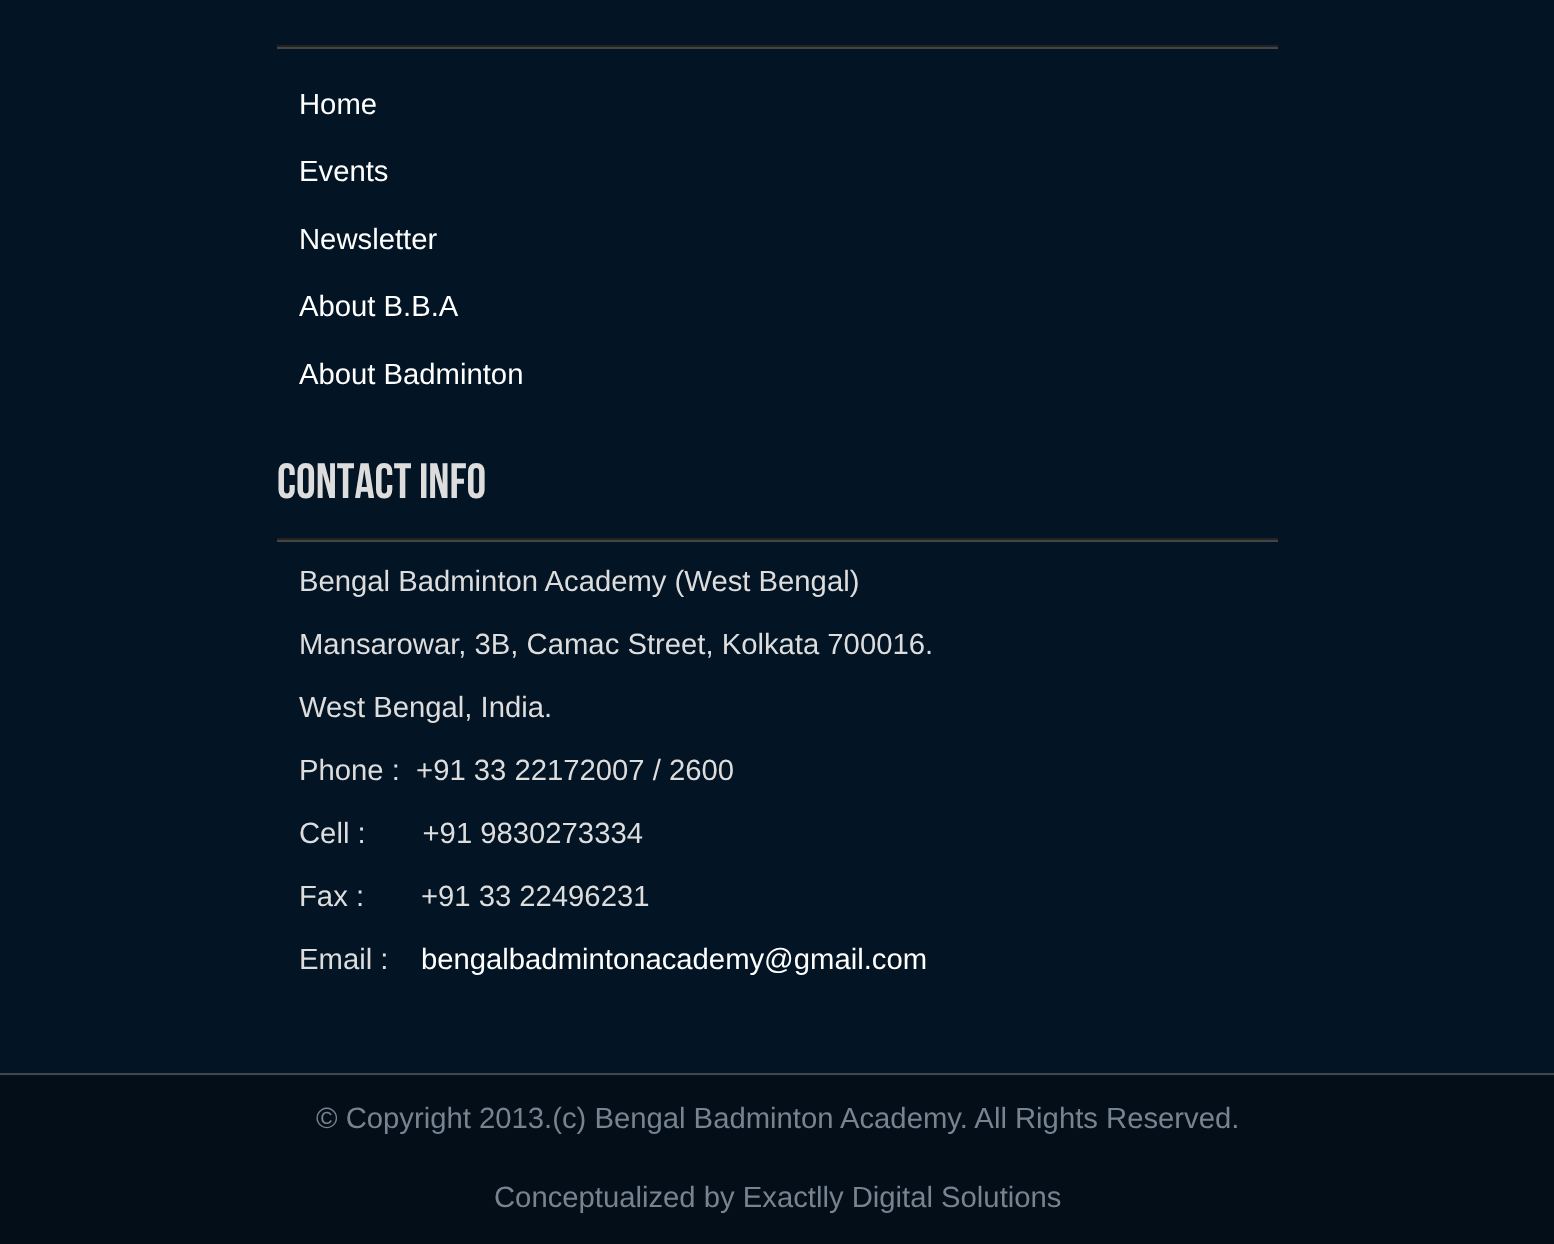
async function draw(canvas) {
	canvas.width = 1554;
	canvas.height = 1244;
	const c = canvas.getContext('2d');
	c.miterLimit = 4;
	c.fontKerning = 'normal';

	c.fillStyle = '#031424';
	c.fillRect(0, 0, 1554, 1244);
	for (const [x, y, w, h, color] of [
		[0, 1073, 1554, 2, '#444'],
		[277, 45, 1001, 2, '#222'],
		[277, 47, 1001, 2, '#444'],
	]) {
		c.fillStyle = color;
		c.fillRect(x, y, w, h);
	}
	c.font = '29.25px Liberation Sans';
	c.fillStyle = '#fff';
	for (const [text, x, y] of [
		['Home', 299, 114],
		['Events', 299, 181],
		['Newsletter', 299, 249],
		['About B.B.A', 299, 316],
		['About Badminton', 299, 384],
	]) {
		c.fillText(text, x, y);
	}
	c.fillStyle = '#222';
	c.fillRect(277, 538, 1001, 2);
	c.font = '49.5px Bebas Neue';
	c.fillStyle = '#ddd';
	c.fillText('Contact Info', 277, 498);
	c.fillStyle = '#444';
	c.fillRect(277, 540, 1001, 2);
	c.font = '29.25px Liberation Sans';
	c.fillStyle = '#ddd';
	for (const [text, x, y] of [
		['Bengal Badminton Academy (West Bengal)', 299, 591],
		['Mansarowar, 3B, Camac Street, Kolkata 700016.', 299, 654],
		['West Bengal, India.', 299, 717],
		['Phone :  +91 33 22172007 / 2600', 299, 780],
		['Cell :       +91 9830273334', 299, 843],
		['Fax :       +91 33 22496231', 299, 906],
		['Email :', 299, 969],
	]) {
		c.fillText(text, x, y);
	}
	c.fillStyle = '#fff';
	c.fillText('bengalbadmintonacademy@gmail.com', 421, 969);
	c.fillStyle = '#040e18';
	c.fillRect(0, 1076, 1554, 168);
	c.fillStyle = '#768391';
	c.fillText('© Copyright 2013.(c) Bengal Badminton Academy. All Rights Reserved.', 316, 1128);
	c.fillText('Conceptualized by Exactlly Digital Solutions', 494, 1207);
}

draw(document.querySelector('canvas'));
